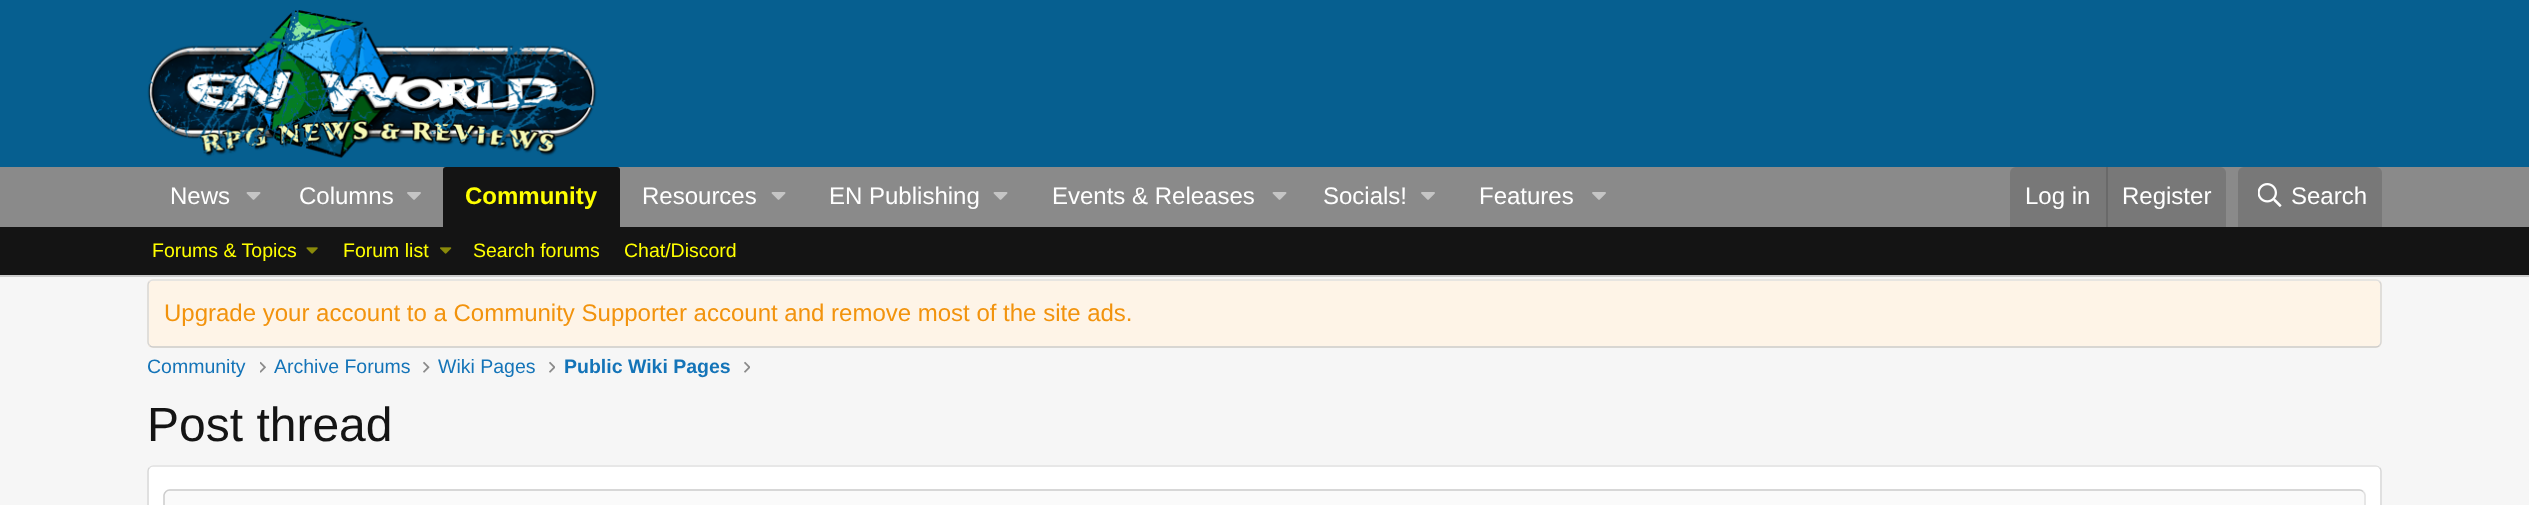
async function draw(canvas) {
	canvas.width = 2529;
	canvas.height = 505;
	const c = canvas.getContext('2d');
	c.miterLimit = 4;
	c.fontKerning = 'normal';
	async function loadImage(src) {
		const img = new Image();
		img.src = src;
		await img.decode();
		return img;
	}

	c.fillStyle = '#f6f6f6';
	c.fillRect(0, 0, 2529, 505);
	c.fillStyle = '#065f90';
	c.fillRect(0, 0, 2529, 167);
	c.drawImage(await loadImage('img1.png'), 147, 10, 450, 148);
	c.fillStyle = '#8a8a8a';
	c.fillRect(0, 167, 2529, 60);
	c.font = '24px Liberation Sans';
	c.fillStyle = '#fff';
	c.fillText('News', 170, 204);
	c.drawImage(await loadImage('img2.png'), 246, 192, 15, 8);
	c.fillText('Columns', 299, 204);
	c.drawImage(await loadImage('img3.png'), 407, 192, 14, 8);
	c.fillStyle = '#141414';
	c.beginPath();
	c.roundRect(443, 167, 177, 60, [3, 3, 0, 0]);
	c.fill();
	c.font = 'bold 24px Liberation Sans';
	c.fillStyle = '#ff0';
	c.fillText('Community', 465, 204);
	c.font = '24px Liberation Sans';
	c.fillStyle = '#fff';
	c.fillText('Resources', 642, 204);
	c.drawImage(await loadImage('img2.png'), 771, 192, 15, 8);
	c.fillText('EN Publishing', 829, 204);
	c.drawImage(await loadImage('img2.png'), 993, 192, 15, 8);
	c.fillText('Events & Releases', 1052, 204);
	c.drawImage(await loadImage('img2.png'), 1272, 192, 15, 8);
	c.fillText('Socials!', 1323, 204);
	c.drawImage(await loadImage('img3.png'), 1421, 192, 14, 8);
	c.fillText('Features', 1479, 204);
	c.drawImage(await loadImage('img3.png'), 1592, 192, 14, 8);
	c.fillStyle = '#787878';
	c.beginPath();
	c.roundRect(2010, 167, 216, 60, [6, 6, 0, 0]);
	c.fill();
	c.fillStyle = '#fff';
	c.fillText('Log in', 2025, 204);
	c.fillStyle = '#696969';
	c.fillRect(2106, 167, 2, 60);
	c.fillStyle = '#fff';
	c.fillText('Register', 2122, 204);
	c.fillStyle = '#787878';
	c.beginPath();
	c.roundRect(2238, 167, 144, 60, [6, 6, 0, 0]);
	c.fill();
	c.drawImage(await loadImage('img4.png'), 2258, 183, 24, 24);
	c.fillStyle = '#fff';
	c.fillText('Search', 2291, 204);
	c.fillStyle = '#141414';
	c.fillRect(0, 227, 2529, 48);
	c.fillStyle = '#ccc';
	c.fillRect(0, 275, 2529, 2);
	c.font = '19.5px Liberation Sans';
	c.fillStyle = '#ff0';
	c.fillText('Forums & Topics', 152, 257);
	c.drawImage(await loadImage('img5.png'), 306, 247, 12, 7);
	c.fillText('Forum list', 343, 257);
	c.drawImage(await loadImage('img6.png'), 440, 247, 12, 7);
	c.fillText('Search forums', 473, 257);
	c.fillText('Chat/Discord', 624, 257);
	c.fillStyle = '#fef4e7';
	c.beginPath();
	c.roundRect(147, 279, 2235, 69, 6);
	c.fill();
	c.beginPath();
	c.moveTo(149.5, 281.5);
	c.bezierCurveTo(150.5, 280.5, 151.5, 280, 153, 280);
	c.lineTo(2376, 280);
	c.bezierCurveTo(2377.5, 280, 2378.5, 280.5, 2379.5, 281.5);
	c.strokeStyle = '#e0e0e0';
	c.lineWidth = 1.5;
	c.stroke();
	c.beginPath();
	c.moveTo(2379.5, 281.5);
	c.bezierCurveTo(2380.5, 282.5, 2381, 283.5, 2381, 285);
	c.lineTo(2381, 342);
	c.bezierCurveTo(2381, 343.5, 2380.5, 344.5, 2379.5, 345.5);
	c.strokeStyle = '#d6d6d6';
	c.stroke();
	c.beginPath();
	c.moveTo(2379.5, 345.5);
	c.bezierCurveTo(2378.5, 346.5, 2377.5, 347, 2376, 347);
	c.lineTo(153, 347);
	c.bezierCurveTo(151.5, 347, 150.5, 346.5, 149.5, 345.5);
	c.strokeStyle = '#ccc';
	c.stroke();
	c.beginPath();
	c.moveTo(149.5, 345.5);
	c.bezierCurveTo(148.5, 344.5, 148, 343.5, 148, 342);
	c.lineTo(148, 285);
	c.bezierCurveTo(148, 283.5, 148.5, 282.5, 149.5, 281.5);
	c.strokeStyle = '#d6d6d6';
	c.stroke();
	c.font = '24px Liberation Sans';
	c.fillStyle = '#f2930d';
	c.fillText('Upgrade your account to a Community Supporter account and remove most of the site ads.', 164, 321);
	c.font = '19.5px Liberation Sans';
	c.fillStyle = '#1474b8';
	c.fillText('Community', 147, 373);
	c.drawImage(await loadImage('img7.png'), 260, 361, 6, 12);
	c.fillText('Archive Forums', 274, 373);
	c.drawImage(await loadImage('img8.png'), 423, 361, 7, 12);
	c.fillText('Wiki Pages', 438, 373);
	c.drawImage(await loadImage('img9.png'), 549, 361, 6, 12);
	c.font = 'bold 19.5px Liberation Sans';
	c.fillText('Public Wiki Pages', 564, 373);
	c.drawImage(await loadImage('img9.png'), 744, 361, 6, 12);
	c.font = '48px Liberation Sans';
	c.fillStyle = '#141414';
	c.fillText('Post thread', 147, 441);
	c.fillStyle = '#fff';
	c.beginPath();
	c.roundRect(147, 465, 2235, 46, 6);
	c.fill();
	c.beginPath();
	c.moveTo(149.5, 467.5);
	c.bezierCurveTo(150.5, 466.5, 151.5, 466, 153, 466);
	c.lineTo(2376, 466);
	c.bezierCurveTo(2377.5, 466, 2378.5, 466.5, 2379.5, 467.5);
	c.strokeStyle = '#e0e0e0';
	c.stroke();
	c.beginPath();
	c.moveTo(2379.5, 467.5);
	c.bezierCurveTo(2380.5, 468.5, 2381, 469.5, 2381, 471);
	c.lineTo(2381, 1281);
	c.bezierCurveTo(2381, 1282.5, 2380.5, 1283.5, 2379.5, 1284.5);
	c.strokeStyle = '#d6d6d6';
	c.stroke();
	c.beginPath();
	c.moveTo(149.5, 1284.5);
	c.bezierCurveTo(148.5, 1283.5, 148, 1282.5, 148, 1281);
	c.lineTo(148, 471);
	c.bezierCurveTo(148, 469.5, 148.5, 468.5, 149.5, 467.5);
	c.stroke();
	c.fillStyle = '#fafafa';
	c.beginPath();
	c.roundRect(164, 489, 2202, 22, 6);
	c.fill();
	c.beginPath();
	c.moveTo(2363, 491.5);
	c.bezierCurveTo(2364, 492.5, 2365, 493.5, 2365, 495);
	c.lineTo(2365, 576);
	c.bezierCurveTo(2365, 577.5, 2364, 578.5, 2363, 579.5);
	c.bezierCurveTo(2362, 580.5, 2361, 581, 2359.5, 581);
	c.lineTo(169.5, 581);
	c.bezierCurveTo(168, 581, 167, 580.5, 166, 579.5);
	c.strokeStyle = '#e0e0e0';
	c.stroke();
	c.beginPath();
	c.moveTo(166, 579.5);
	c.bezierCurveTo(165, 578.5, 164, 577.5, 164, 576);
	c.lineTo(164, 495);
	c.bezierCurveTo(164, 493.5, 165, 492.5, 166, 491.5);
	c.bezierCurveTo(167, 490.5, 168, 490, 169.5, 490);
	c.lineTo(2359.5, 490);
	c.bezierCurveTo(2361, 490, 2362, 490.5, 2363, 491.5);
	c.strokeStyle = '#ccc';
	c.stroke();
}

draw(document.querySelector('canvas'));
